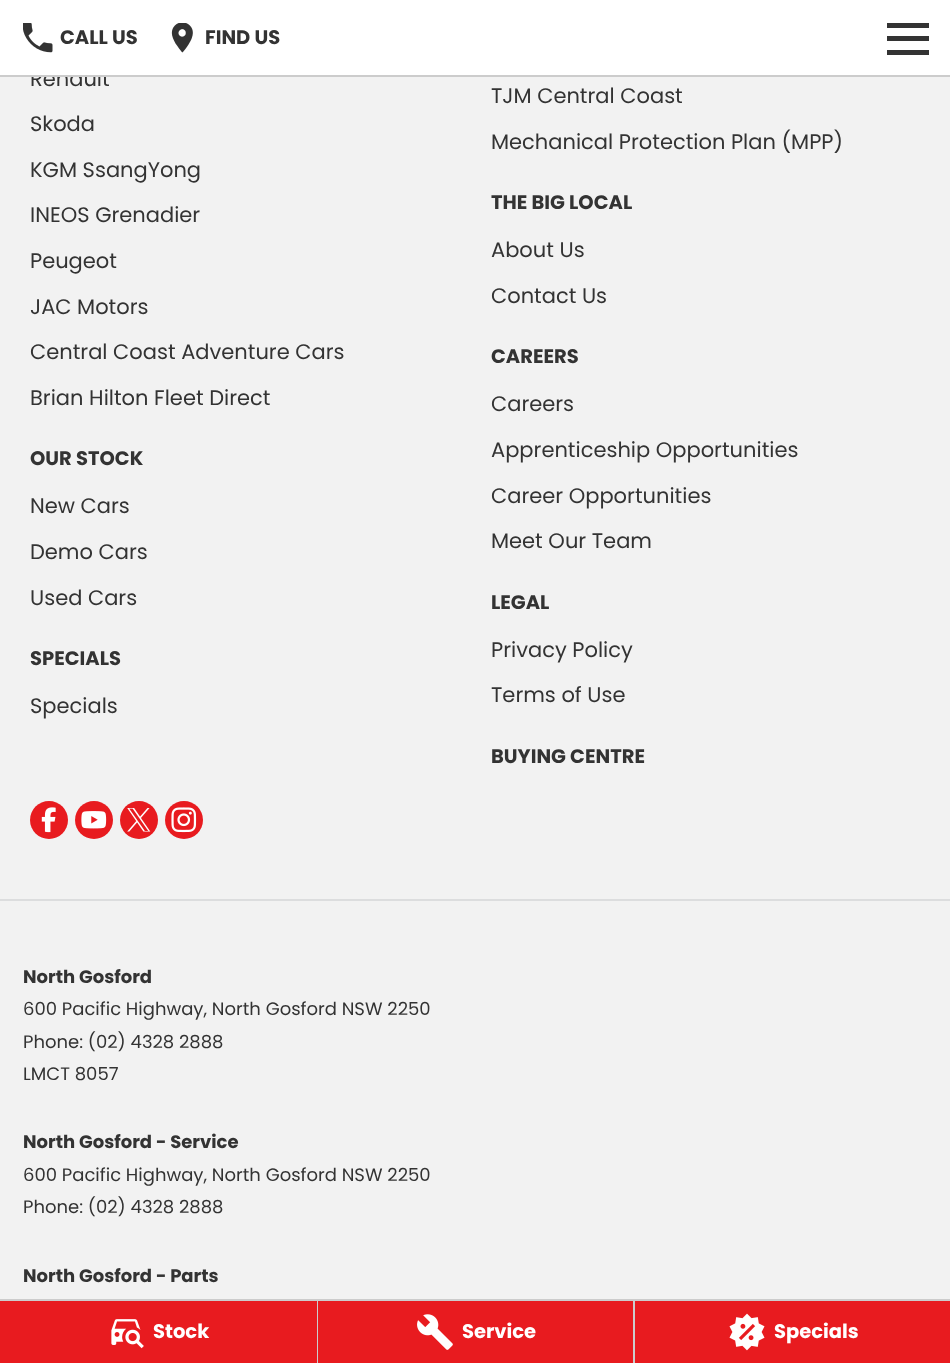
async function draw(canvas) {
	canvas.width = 950;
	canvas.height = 1363;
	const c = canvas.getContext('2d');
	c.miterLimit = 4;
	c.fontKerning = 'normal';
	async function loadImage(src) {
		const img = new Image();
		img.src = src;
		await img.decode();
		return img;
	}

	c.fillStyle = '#f2f2f2';
	c.fillRect(0, 0, 950, 1363);
	c.font = '21px Poppins';
	c.fillStyle = '#333';
	c.fillText('Renault', 30, 86);
	c.fillStyle = '#fff';
	c.fillRect(0, 0, 950, 75);
	c.fillStyle = '#ccc';
	c.fillRect(0, 75, 950, 2);
	c.drawImage(await loadImage('img1.png'), 23, 23, 30, 30);
	c.font = 'bold 19.5px Poppins';
	c.fillStyle = '#333';
	c.fillText('CALL US', 60, 44);
	c.drawImage(await loadImage('img2.png'), 171, 23, 22, 30);
	c.fillText('FIND US', 205, 44);
	for (const [x, y, w, h, color] of [
		[887, 23, 42, 5, '#333'],
		[887, 36, 42, 5, '#333'],
		[887, 50, 42, 5, '#333'],
	]) {
		c.fillStyle = color;
		c.fillRect(x, y, w, h);
	}
	c.font = '21px Poppins';
	for (const [text, x, y] of [
		['Skoda', 30, 131],
		['KGM SsangYong', 30, 177],
		['INEOS Grenadier', 30, 222],
		['Peugeot', 30, 268],
		['JAC Motors', 30, 314],
		['Central Coast Adventure Cars', 30, 359],
		['Brian Hilton Fleet Direct', 30, 405],
		['TJM Central Coast', 491, 103],
		['Mechanical Protection Plan (MPP)', 491, 149],
	]) {
		c.fillText(text, x, y);
	}
	c.font = 'bold 19.5px Poppins';
	c.fillText('THE BIG LOCAL', 491, 209);
	c.font = '21px Poppins';
	c.fillText('About Us', 491, 257);
	c.fillText('Contact Us', 491, 303);
	c.font = 'bold 19.5px Poppins';
	c.fillText('OUR STOCK', 30, 465);
	c.font = '21px Poppins';
	for (const [text, x, y] of [
		['New Cars', 30, 513],
		['Demo Cars', 30, 559],
		['Used Cars', 30, 605],
	]) {
		c.fillText(text, x, y);
	}
	c.font = 'bold 19.5px Poppins';
	c.fillText('CAREERS', 491, 363);
	c.font = '21px Poppins';
	for (const [text, x, y] of [
		['Careers', 491, 411],
		['Apprenticeship Opportunities', 491, 457],
		['Career Opportunities', 491, 503],
		['Meet Our Team', 491, 548],
	]) {
		c.fillText(text, x, y);
	}
	c.font = 'bold 19.5px Poppins';
	c.fillText('SPECIALS', 30, 665);
	c.font = '21px Poppins';
	c.fillText('Specials', 30, 713);
	c.font = 'bold 19.5px Poppins';
	c.fillText('LEGAL', 491, 609);
	c.font = '21px Poppins';
	c.fillText('Privacy Policy', 491, 657);
	c.fillText('Terms of Use', 491, 702);
	c.font = 'bold 19.5px Poppins';
	c.fillText('BUYING CENTRE', 491, 763);
	c.fillStyle = '#e81b1f';
	c.beginPath();
	c.arc(49, 820, 19, 0, 2 * Math.PI);
	c.fill();
	c.drawImage(await loadImage('img3.png'), 41, 807, 15, 26);
	c.beginPath();
	c.arc(94, 820, 19, 0, 2 * Math.PI);
	c.fill();
	c.drawImage(await loadImage('img4.png'), 81, 811, 26, 18);
	c.beginPath();
	c.arc(139, 820, 19, 0, 2 * Math.PI);
	c.fill();
	c.drawImage(await loadImage('img5.png'), 127, 808, 24, 24);
	c.beginPath();
	c.arc(184, 820, 19, 0, 2 * Math.PI);
	c.fill();
	c.drawImage(await loadImage('img6.png'), 171, 807, 26, 26);
	c.fillStyle = '#dcddde';
	c.fillRect(0, 899, 950, 2);
	c.font = 'bold 18px Poppins';
	c.fillStyle = '#333';
	c.fillText('North Gosford', 23, 983);
	c.font = '18px Poppins';
	for (const [text, x, y] of [
		['600 Pacific Highway, North Gosford NSW 2250', 23, 1015],
		['Phone: (02) 4328 2888', 23, 1048],
		['LMCT 8057', 23, 1080],
	]) {
		c.fillText(text, x, y);
	}
	c.font = 'bold 18px Poppins';
	c.fillText('North Gosford - Service', 23, 1148);
	c.font = '18px Poppins';
	c.fillText('600 Pacific Highway, North Gosford NSW 2250', 23, 1181);
	c.fillText('Phone: (02) 4328 2888', 23, 1213);
	c.font = 'bold 18px Poppins';
	c.fillText('North Gosford - Parts', 23, 1282);
	for (const [x, y, w, h, color] of [
		[0, 1299, 950, 2, '#ccc'],
		[0, 1301, 317, 62, '#e81b1f'],
		[317, 1301, 1, 62, '#ccc'],
	]) {
		c.fillStyle = color;
		c.fillRect(x, y, w, h);
	}
	c.drawImage(await loadImage('img7.png'), 111, 1319, 33, 30);
	c.font = 'bold 19.5px Poppins';
	c.fillStyle = '#fff';
	c.fillText('Stock', 153, 1338);
	c.fillStyle = '#e81b1f';
	c.fillRect(318, 1301, 315, 62);
	c.fillStyle = '#ccc';
	c.fillRect(633, 1301, 2, 62);
	c.drawImage(await loadImage('img8.png'), 417, 1314, 36, 36);
	c.fillStyle = '#fff';
	c.fillText('Service', 462, 1338);
	c.fillStyle = '#e81b1f';
	c.fillRect(635, 1301, 315, 62);
	c.drawImage(await loadImage('img9.png'), 729, 1313, 36, 38);
	c.fillStyle = '#fff';
	c.fillText('Specials', 774, 1338);
}

draw(document.querySelector('canvas'));
